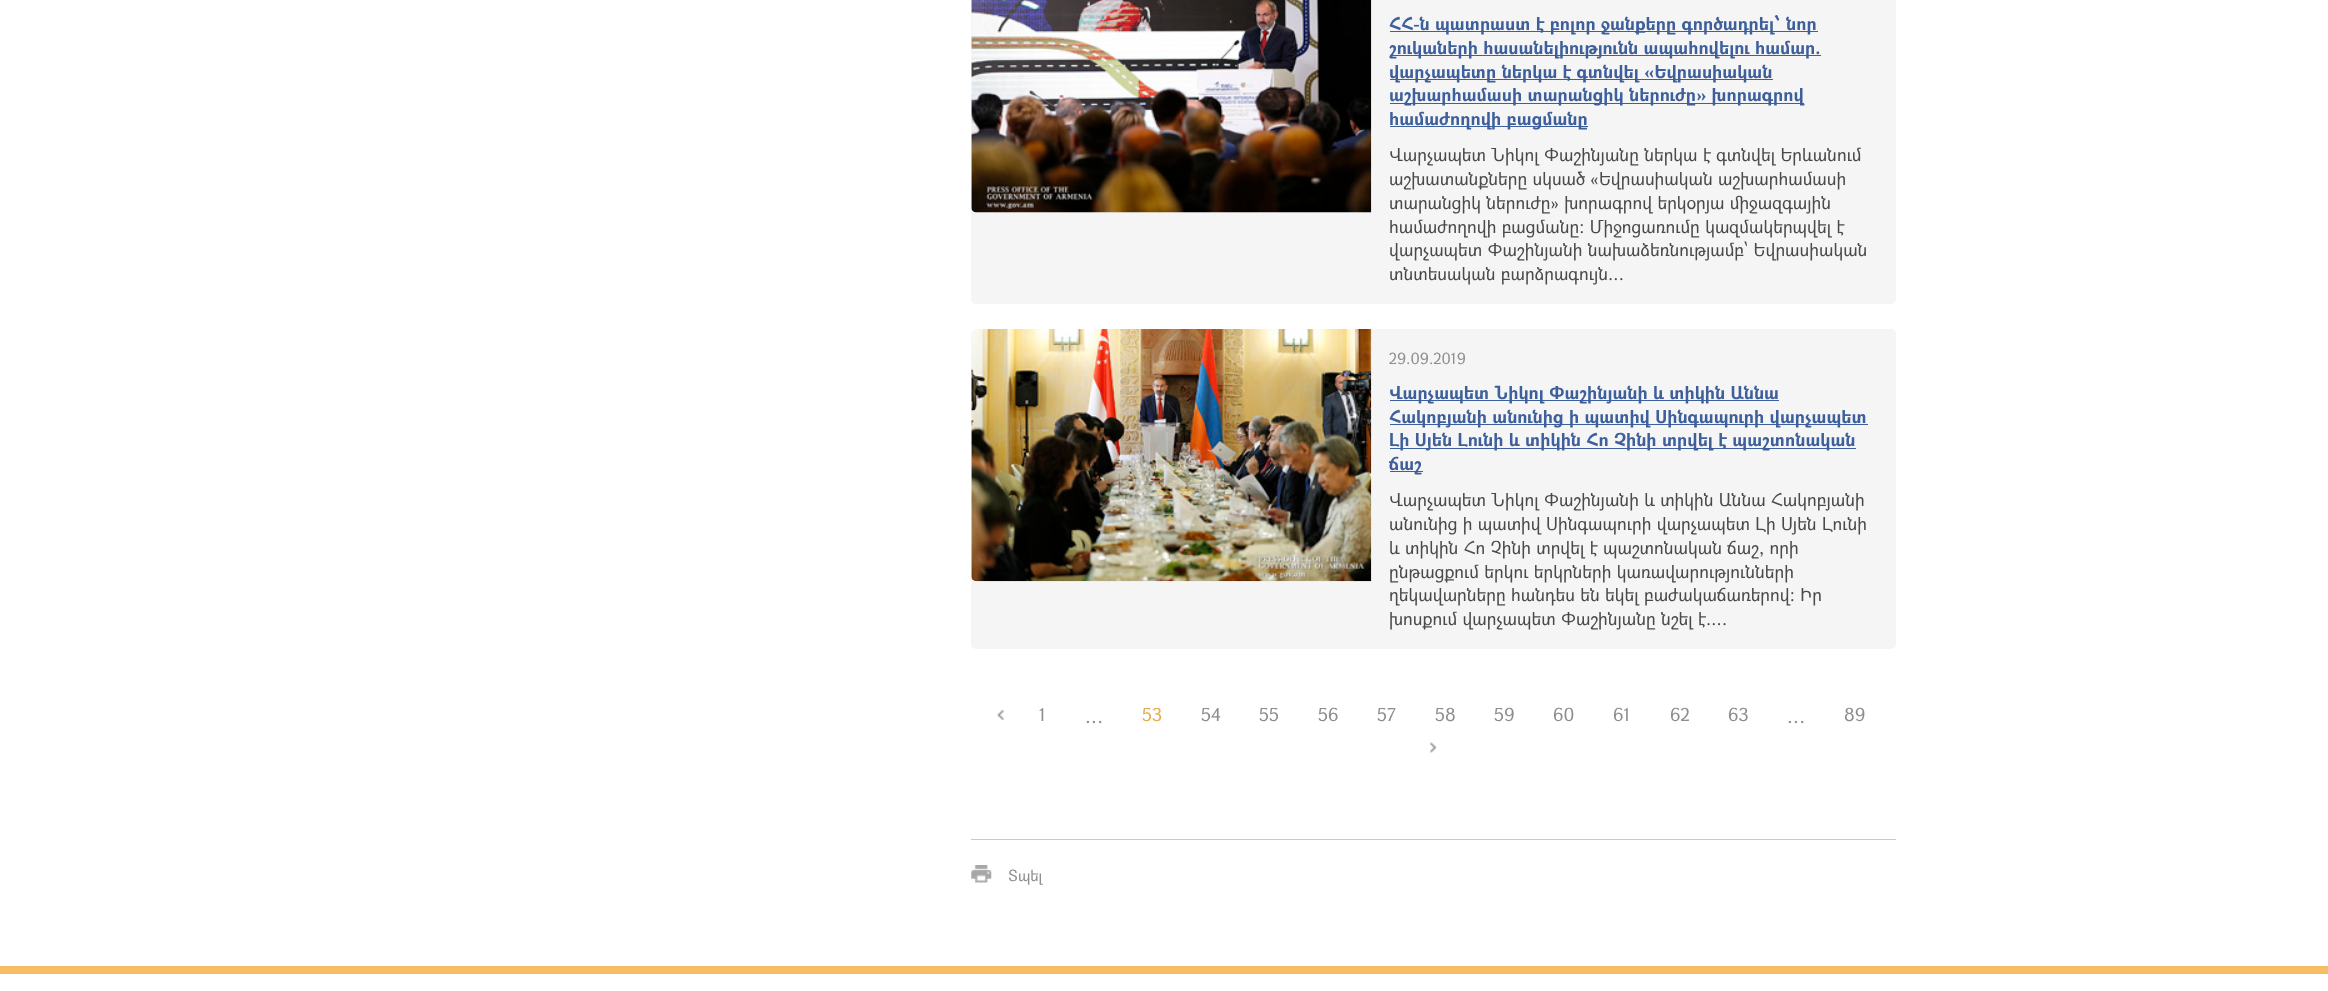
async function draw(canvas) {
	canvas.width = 2328;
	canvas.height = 991;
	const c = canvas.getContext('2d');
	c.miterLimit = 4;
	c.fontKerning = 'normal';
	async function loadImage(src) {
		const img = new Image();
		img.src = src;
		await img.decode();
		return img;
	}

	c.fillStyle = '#fff';
	c.fillRect(0, 0, 2328, 991);
	c.fillStyle = '#f5bd64';
	c.fillRect(0, 966, 2328, 8);
	c.fillStyle = '#f5f5f5';
	c.beginPath();
	c.roundRect(971, -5, 925, 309, 5);
	c.fill();
	c.drawImage(await loadImage('img1.png'), 971, 0, 401, 213);
	c.fillStyle = '#3d5f9c';
	c.fillRect(1390, 31, 428, 1);
	c.font = 'bold 17.5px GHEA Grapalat';
	c.fillText('ՀՀ-ն պատրաստ է բոլոր ջանքերը գործադրել՝ նոր', 1389, 30);
	c.fillRect(1390, 55, 431, 1);
	c.fillText('շուկաների հասանելիությունն ապահովելու համար.', 1389, 54);
	c.fillRect(1390, 79, 383, 1);
	c.fillText('վարչապետը ներկա է գտնվել «Եվրասիական', 1389, 78);
	c.fillRect(1390, 103, 414, 1);
	c.fillText('աշխարհամասի տարանցիկ ներուժը» խորագրով', 1389, 101);
	c.fillRect(1390, 126, 198, 1);
	c.fillText('համաժողովի բացմանը', 1389, 125);
	c.font = '17.5px GHEA Grapalat';
	c.fillStyle = '#4a4a4a';
	for (const [text, x, y] of [
		['Վարչապետ Նիկոլ Փաշինյանը ներկա է գտնվել Երևանում', 1389, 161],
		['աշխատանքները սկսած «Եվրասիական աշխարհամասի', 1389, 185],
		['տարանցիկ ներուժը» խորագրով երկօրյա միջազգային', 1389, 209],
		['համաժողովի բացմանը: Միջոցառումը կազմակերպվել է', 1389, 233],
		['վարչապետ Փաշինյանի նախաձեռնությամբ՝ Եվրասիական', 1389, 256],
		['տնտեսական բարձրագույն...', 1389, 280],
	]) {
		c.fillText(text, x, y);
	}
	c.fillStyle = '#f5f5f5';
	c.beginPath();
	c.roundRect(971, 329, 925, 320, 5);
	c.fill();
	c.drawImage(await loadImage('img2.png'), 971, 329, 401, 253);
	c.font = '15px GHEA Grapalat';
	c.fillStyle = '#8d8d8d';
	c.fillText('29.09.2019', 1389, 364);
	c.fillStyle = '#3d5f9c';
	c.fillRect(1390, 400, 389, 1);
	c.font = 'bold 17.5px GHEA Grapalat';
	c.fillText('Վարչապետ Նիկոլ Փաշինյանի և տիկին Աննա', 1389, 399);
	c.fillRect(1390, 424, 478, 1);
	c.fillText('Հակոբյանի անունից ի պատիվ Սինգապուրի վարչապետ', 1389, 423);
	c.fillRect(1390, 448, 466, 1);
	c.fillText('Լի Սյեն Լունի և տիկին Հո Չինի տրվել է պաշտոնական', 1389, 446);
	c.fillRect(1390, 471, 33, 1);
	c.fillText('ճաշ', 1389, 470);
	c.font = '17.5px GHEA Grapalat';
	c.fillStyle = '#4a4a4a';
	for (const [text, x, y] of [
		['Վարչապետ Նիկոլ Փաշինյանի և տիկին Աննա Հակոբյանի', 1389, 506],
		['անունից ի պատիվ Սինգապուրի վարչապետ Լի Սյեն Լունի', 1389, 530],
		['և տիկին Հո Չինի տրվել է պաշտոնական ճաշ, որի', 1389, 554],
		['ընթացքում երկու երկրների կառավարությունների', 1389, 578],
		['ղեկավարները հանդես են եկել բաժակաճառերով: Իր', 1389, 601],
		['խոսքում վարչապետ Փաշինյանը նշել է....', 1389, 625],
	]) {
		c.fillText(text, x, y);
	}
	c.drawImage(await loadImage('img3.png'), 997, 710, 7, 10);
	c.fillStyle = '#8d8d8d';
	c.fillText('1', 1039, 721);
	c.fillStyle = '#e7ab4b';
	c.fillText('53', 1142, 721);
	c.fillStyle = '#8d8d8d';
	for (const [text, x, y] of [
		['54', 1201, 721],
		['55', 1259, 721],
		['56', 1318, 721],
		['57', 1377, 721],
		['58', 1435, 721],
		['59', 1494, 721],
		['60', 1553, 721],
		['61', 1613, 721],
		['62', 1670, 721],
		['63', 1728, 721],
		['89', 1844, 721],
	]) {
		c.fillText(text, x, y);
	}
	c.font = '20px GHEA Grapalat';
	c.fillText('...', 1085, 723);
	c.fillText('...', 1787, 723);
	c.drawImage(await loadImage('img4.png'), 1430, 742, 7, 11);
	c.fillStyle = '#c9c9c9';
	c.fillRect(971, 839, 925, 1);
	c.drawImage(await loadImage('img5.png'), 971, 865, 21, 18);
	c.font = '15px GHEA Grapalat';
	c.fillStyle = '#8d8d8d';
	c.fillText('Տպել', 1008, 881);
}

draw(document.querySelector('canvas'));
